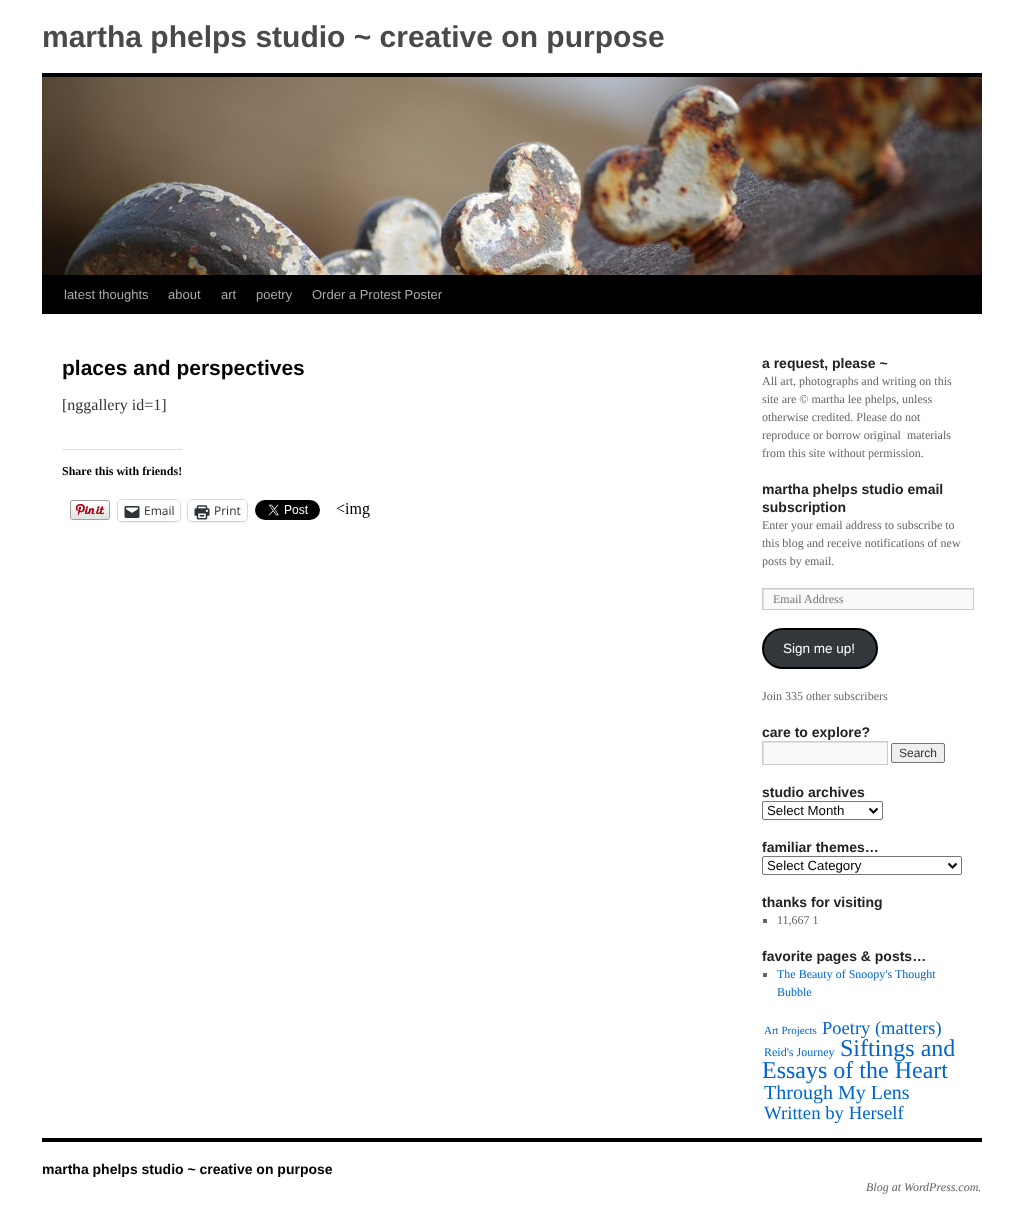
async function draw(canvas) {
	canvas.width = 1023;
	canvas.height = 1208;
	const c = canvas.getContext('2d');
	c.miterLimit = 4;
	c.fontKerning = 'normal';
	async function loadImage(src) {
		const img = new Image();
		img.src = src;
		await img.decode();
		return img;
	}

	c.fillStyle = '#fff';
	c.fillRect(0, 0, 1023, 1208);
	c.font = 'bold 30px Liberation Sans';
	c.fillStyle = '#494949';
	c.fillText('martha phelps studio ~ creative on purpose', 42, 47);
	c.fillStyle = '#000';
	c.fillRect(42, 73, 940, 4);
	c.fillRect(42, 275, 940, 39);
	c.drawImage(await loadImage('img1.png'), 42, 77, 940, 198);
	c.font = '13px Liberation Sans';
	c.fillStyle = '#aaa';
	for (const [text, x, y] of [
		['latest thoughts', 64, 299],
		['about', 168, 299],
		['art', 221, 299],
		['poetry', 256, 299],
		['Order a Protest Poster', 312, 299],
	]) {
		c.fillText(text, x, y);
	}
	c.font = 'bold 21px Liberation Sans';
	c.fillStyle = '#000';
	c.fillText('places and perspectives', 62, 375);
	c.font = '16px Liberation Serif';
	c.fillStyle = '#333';
	c.fillText('[nggallery id=1]', 62, 410);
	c.fillStyle = '#dcdcde';
	c.fillRect(62, 449, 120, 1);
	c.font = 'bold 12px Liberation Serif';
	c.fillStyle = '#000';
	c.fillText('Share this with friends!', 62, 475);
	c.drawImage(await loadImage('img2.png'), 70, 500, 40, 20);
	c.beginPath();
	c.roundRect(117.5, 499.5, 63, 22, 4.5);
	c.strokeStyle = '#e0e0e0';
	c.stroke();
	c.fillStyle = '#0000001f';
	c.filter = 'blur(1px)';
	c.beginPath();
	c.roundRect(118, 501, 62, 21, 4);
	c.fill();
	c.filter = 'none';
	c.fillStyle = '#fff';
	c.beginPath();
	c.roundRect(118, 500, 62, 21, 4);
	c.fill();
	c.drawImage(await loadImage('img3.png'), 124, 506, 16, 12);
	c.font = '12px Open Sans';
	c.fillStyle = '#2c3338';
	c.fillText('Email', 144, 515);
	c.beginPath();
	c.roundRect(187.5, 499.5, 60, 22, 4.5);
	c.stroke();
	c.fillStyle = '#0000001f';
	c.filter = 'blur(1px)';
	c.beginPath();
	c.roundRect(188, 501, 59, 21, 4);
	c.fill();
	c.filter = 'none';
	c.fillStyle = '#fff';
	c.beginPath();
	c.roundRect(188, 500, 59, 21, 4);
	c.fill();
	c.drawImage(await loadImage('img4.png'), 194, 505, 16, 15);
	c.fillStyle = '#2c3338';
	c.fillText('Print', 214, 515);
	c.drawImage(await loadImage('img5.png'), 255, 500, 65, 20);
	c.drawImage(await loadImage('img6.png'), 336, 503, 34, 15);
	c.font = 'bold 14px Liberation Sans';
	c.fillStyle = '#222';
	c.fillText('a request, please ~', 762, 368);
	c.font = '12px Liberation Serif';
	c.fillStyle = '#666';
	for (const [text, x, y] of [
		['All art, photographs and writing on this', 762, 385],
		['site are © martha lee phelps, unless', 762, 403],
		['otherwise credited. Please do not', 762, 421],
		['reproduce or borrow original  materials', 762, 439],
		['from this site without permission.', 762, 457],
	]) {
		c.fillText(text, x, y);
	}
	c.font = 'bold 14px Liberation Sans';
	c.fillStyle = '#222';
	c.fillText('martha phelps studio email', 762, 494);
	c.fillText('subscription', 762, 512);
	c.font = '12px Liberation Serif';
	c.fillStyle = '#666';
	for (const [text, x, y] of [
		['Enter your email address to subscribe to', 762, 529],
		['this blog and receive notifications of new', 762, 547],
		['posts by email.', 762, 565],
	]) {
		c.fillText(text, x, y);
	}
	c.fillStyle = '#f9f9f9';
	c.fillRect(764, 590, 209, 19);
	c.save();
	c.beginPath();
	c.rect(763, 589, 210, 20);
	c.clip();
	c.fillStyle = '#e0e0e0';
	c.beginPath();
	c.moveTo(664, 490);
	c.lineTo(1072, 490);
	c.lineTo(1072, 708);
	c.lineTo(664, 708);
	c.closePath();
	c.moveTo(764, 590);
	c.lineTo(974, 590);
	c.lineTo(974, 610);
	c.lineTo(764, 610);
	c.closePath();
	c.fill('evenodd');
	c.restore();
	c.strokeStyle = '#ccc';
	c.strokeRect(762.5, 588.5, 211, 21);
	c.fillStyle = '#757575';
	c.fillText('Email Address', 773, 603);
	c.fillStyle = '#32373c';
	c.beginPath();
	c.roundRect(763, 629, 114, 39, 19.5);
	c.fill();
	c.strokeStyle = '#000';
	c.lineWidth = 2;
	c.stroke();
	c.font = '13.5px Liberation Sans';
	c.fillStyle = '#fff';
	c.fillText('Sign me up!', 783, 653);
	c.font = '12px Liberation Serif';
	c.fillStyle = '#666';
	c.fillText('Join 335 other subscribers', 762, 700);
	c.font = 'bold 14px Liberation Sans';
	c.fillStyle = '#222';
	c.fillText('care to explore?', 762, 737);
	c.fillStyle = '#f9f9f9';
	c.fillRect(764, 743, 123, 21);
	c.save();
	c.beginPath();
	c.rect(763, 742, 124, 22);
	c.clip();
	c.fillStyle = '#e0e0e0';
	c.beginPath();
	c.moveTo(664, 643);
	c.lineTo(986, 643);
	c.lineTo(986, 863);
	c.lineTo(664, 863);
	c.closePath();
	c.moveTo(764, 743);
	c.lineTo(888, 743);
	c.lineTo(888, 765);
	c.lineTo(764, 765);
	c.closePath();
	c.fill('evenodd');
	c.restore();
	c.strokeStyle = '#ccc';
	c.lineWidth = 1;
	c.strokeRect(762.5, 741.5, 125, 23);
	c.fillStyle = '#efefef';
	c.beginPath();
	c.roundRect(891.5, 743.5, 53, 19, 1.5);
	c.fill();
	c.strokeStyle = '#767676';
	c.stroke();
	c.font = '12px Liberation Sans';
	c.fillStyle = '#333';
	c.fillText('Search', 899, 757);
	c.font = 'bold 14px Liberation Sans';
	c.fillStyle = '#222';
	c.fillText('studio archives', 762, 797);
	c.beginPath();
	c.roundRect(762.5, 801.5, 120, 18, 1.5);
	c.stroke();
	c.beginPath();
	c.moveTo(869.5, 808.5);
	c.lineTo(873.5, 812.5);
	c.lineTo(877.5, 808.5);
	c.strokeStyle = '#000';
	c.lineWidth = 2;
	c.stroke();
	c.font = '13.25px Liberation Sans';
	c.fillStyle = '#000';
	c.fillText('Select Month', 767, 815);
	c.font = 'bold 14px Liberation Sans';
	c.fillStyle = '#222';
	c.fillText('familiar themes…', 762, 852);
	c.beginPath();
	c.roundRect(762.5, 856.5, 199, 18, 1.5);
	c.strokeStyle = '#767676';
	c.lineWidth = 1;
	c.stroke();
	c.beginPath();
	c.moveTo(948.5, 863.5);
	c.lineTo(952.5, 867.5);
	c.lineTo(956.5, 863.5);
	c.strokeStyle = '#000';
	c.lineWidth = 2;
	c.stroke();
	c.font = '13.25px Liberation Sans';
	c.fillStyle = '#000';
	c.fillText('Select Category', 767, 870);
	c.font = 'bold 14px Liberation Sans';
	c.fillStyle = '#222';
	c.fillText('thanks for visiting', 762, 907);
	c.fillStyle = '#666';
	c.fillRect(763, 919, 4, 4);
	c.font = '12px Liberation Serif';
	c.fillText('11,667 1', 777, 924);
	c.font = 'bold 14px Liberation Sans';
	c.fillStyle = '#222';
	c.fillText('favorite pages & posts…', 762, 961);
	c.fillStyle = '#666';
	c.fillRect(763, 973, 4, 4);
	c.font = '12px Liberation Serif';
	c.fillStyle = '#06c';
	c.fillText('The Beauty of Snoopy\'s Thought', 777, 978);
	c.fillText('Bubble', 777, 996);
	c.font = '11px Liberation Serif';
	c.fillText('Art Projects', 764, 1034);
	c.font = '18.5px Liberation Serif';
	c.fillText('Poetry (matters)', 822, 1034);
	c.font = '12px Liberation Serif';
	c.fillText('Reid\'s Journey', 764, 1056);
	c.font = '24px Liberation Serif';
	c.fillText('Siftings and', 840, 1056);
	c.fillText('Essays of the Heart', 762, 1078);
	c.font = '20px Liberation Serif';
	c.fillText('Through My Lens', 764, 1099);
	c.font = '18.75px Liberation Serif';
	c.fillText('Written by Herself', 764, 1119);
	c.fillStyle = '#000';
	c.fillRect(42, 1138, 940, 4);
	c.font = 'bold 14px Liberation Sans';
	c.fillText('martha phelps studio ~ creative on purpose', 42, 1174);
	c.font = 'italic 12px Liberation Serif';
	c.fillStyle = '#666';
	c.fillText('Blog at WordPress.com.', 866, 1191);
}

draw(document.querySelector('canvas'));
